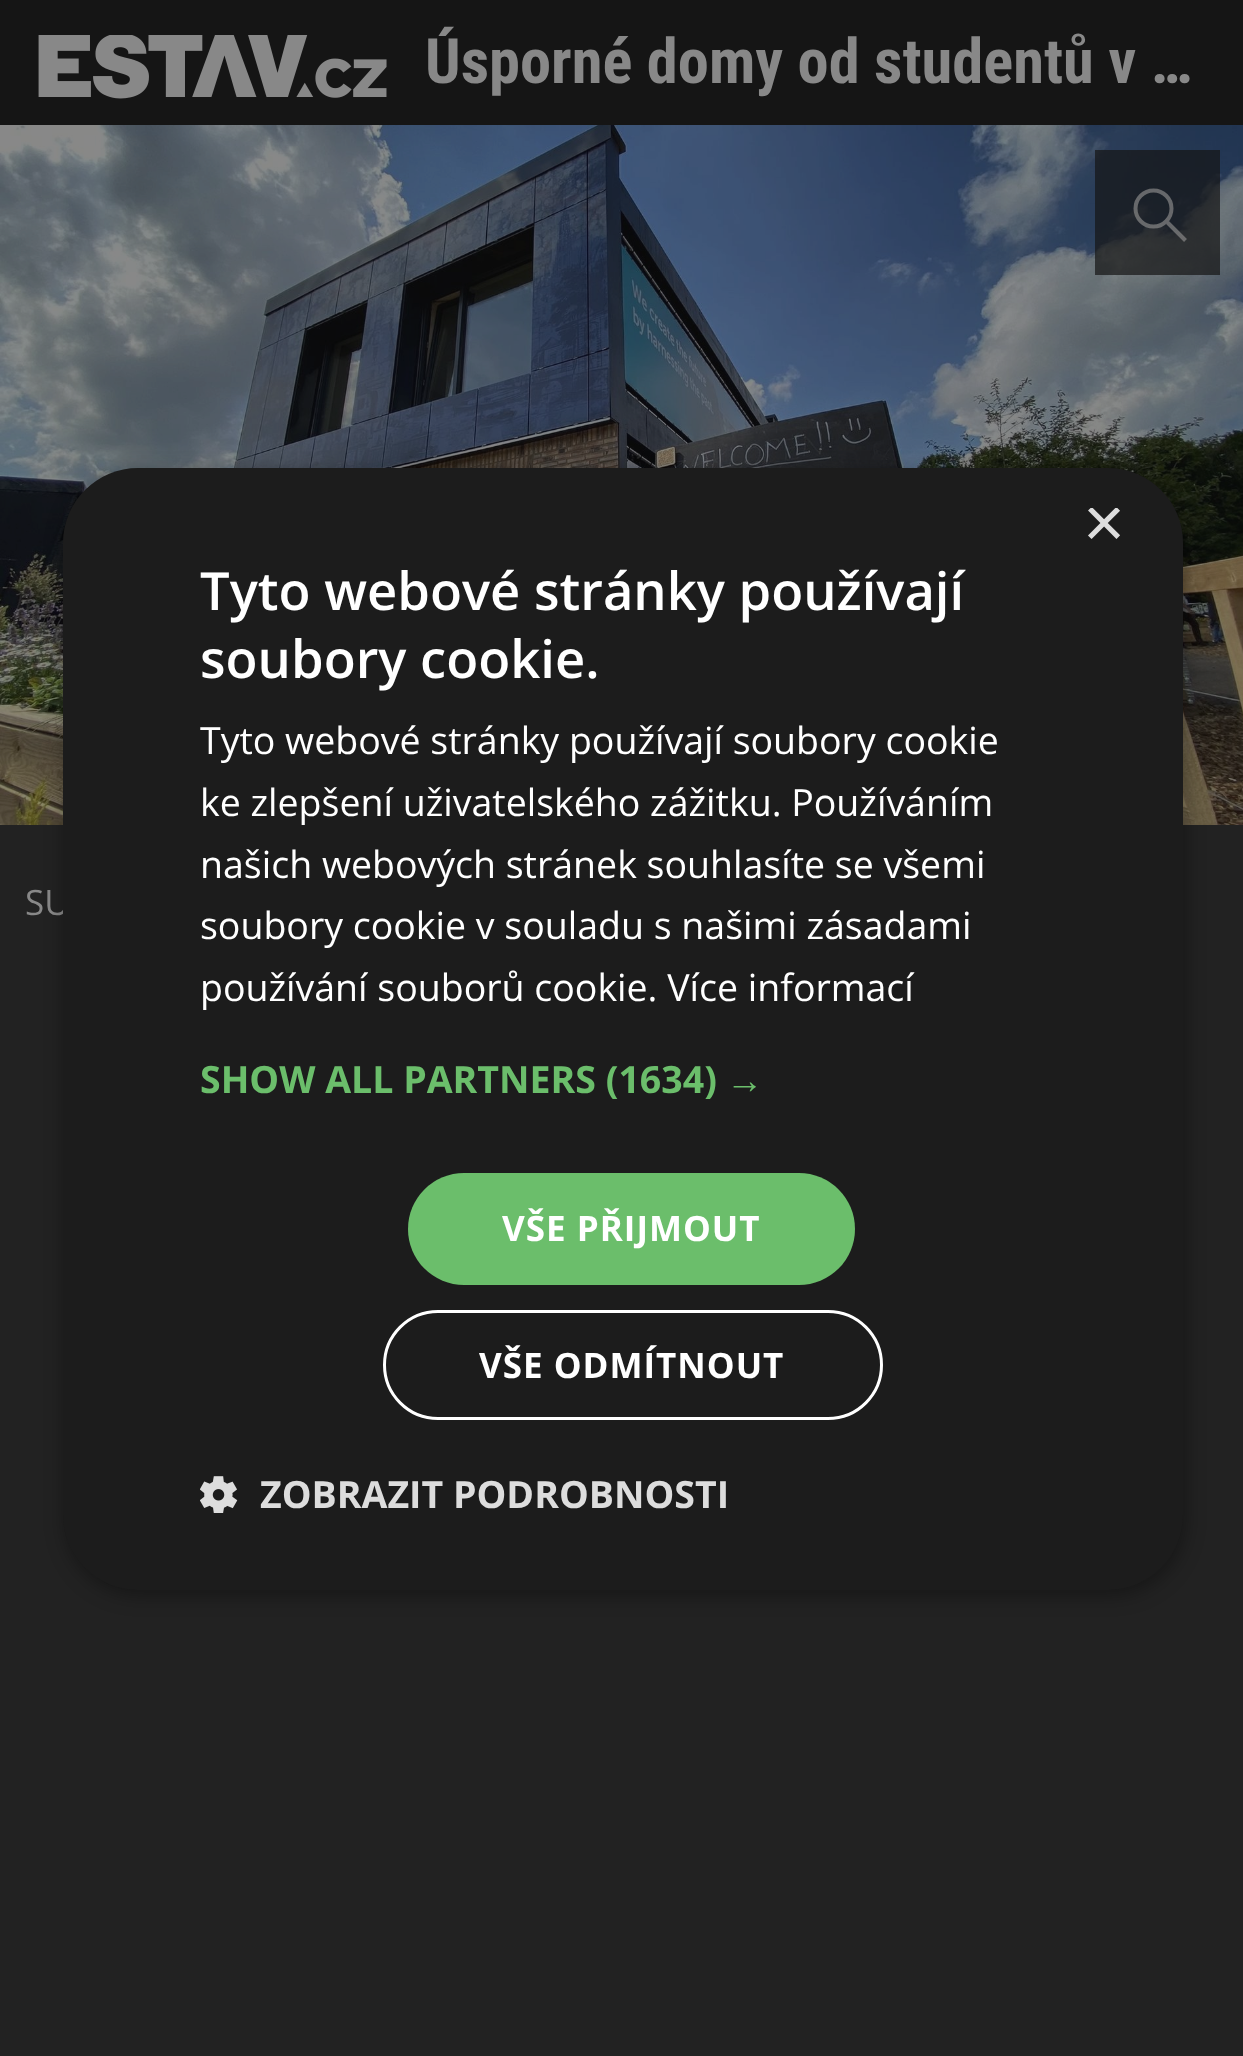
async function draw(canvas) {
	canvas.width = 1243;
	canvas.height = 2056;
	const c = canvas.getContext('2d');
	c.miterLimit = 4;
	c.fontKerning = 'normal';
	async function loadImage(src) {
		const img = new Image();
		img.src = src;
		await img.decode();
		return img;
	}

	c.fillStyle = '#222';
	c.fillRect(0, 0, 1243, 2056);
	c.fillStyle = '#151515';
	c.fillRect(0, 0, 1243, 125);
	c.drawImage(await loadImage('img1.png'), 38, 35, 349, 64);
	c.font = 'bold 62.5px Roboto Condensed';
	c.fillStyle = '#888';
	c.fillText('Úsporné domy od studentů v …', 425, 83);
	c.drawImage(await loadImage('img2.png'), 0, 125, 1243, 700);
	c.fillStyle = '#151515b3';
	c.fillRect(1095, 150, 125, 125);
	c.beginPath();
	c.arc(1153.5, 208.5, 18, 0, 2 * Math.PI);
	c.strokeStyle = '#888888b3';
	c.lineWidth = 4;
	c.stroke();
	c.beginPath();
	c.moveTo(1167.5, 222.5);
	c.lineTo(1185.5, 240.5);
	c.stroke();
	c.font = '35px Open Sans';
	c.fillStyle = '#888';
	c.fillText('SU', 25, 915);
	c.fillStyle = '#00000059';
	c.filter = 'blur(10px)';
	c.beginPath();
	c.roundRect(65, 473, 1120, 1122, 75);
	c.fill();
	c.filter = 'none';
	c.fillStyle = '#1c1c1c';
	c.beginPath();
	c.roundRect(63, 468, 1120, 1122, 75);
	c.fill();
	c.save();
	c.beginPath();
	c.rect(1083, 508, 37, 37);
	c.clip();
	c.font = '72px Liberation Sans';
	c.fillStyle = '#ddd';
	c.fillText('×', 1083, 547);
	c.restore();
	c.font = '600 52.5px Open Sans';
	c.fillStyle = '#fff';
	c.fillText('Tyto webové stránky používají', 200, 610);
	c.fillText('soubory cookie.', 200, 678);
	c.font = '37.5px Open Sans';
	for (const [text, x, y] of [
		['Tyto webové stránky používají soubory cookie', 200, 754],
		['ke zlepšení uživatelského zážitku. Používáním', 200, 816],
		['našich webových stránek souhlasíte se všemi', 200, 878],
		['soubory cookie v souladu s našimi zásadami', 200, 939],
		['používání souborů cookie. Více informací', 200, 1001],
	]) {
		c.fillText(text, x, y);
	}
	c.font = 'bold 37.5px Open Sans';
	c.fillStyle = '#6bbe6b';
	c.fillText('SHOW ALL PARTNERS (1634)', 200, 1093);
	c.font = 'bold 37.5px Liberation Sans';
	c.fillText('→', 726, 1093);
	c.beginPath();
	c.roundRect(408, 1173, 447, 112, 56);
	c.fill();
	c.letterSpacing = '1px';
	c.font = 'bold 35px Open Sans';
	c.fillStyle = '#fff';
	c.fillText('VŠE PŘIJMOUT', 502, 1241);
	c.beginPath();
	c.roundRect(384.5, 1311.5, 497, 107, 53.5);
	c.strokeStyle = '#fff';
	c.lineWidth = 3;
	c.stroke();
	c.fillText('VŠE ODMÍTNOUT', 479, 1378);
	c.drawImage(await loadImage('img3.png'), 200, 1476, 38, 37);
	c.letterSpacing = '0px';
	c.font = 'bold 37.5px Open Sans';
	c.fillStyle = '#ddd';
	c.fillText('ZOBRAZIT PODROBNOSTI', 260, 1508);
}

draw(document.querySelector('canvas'));
